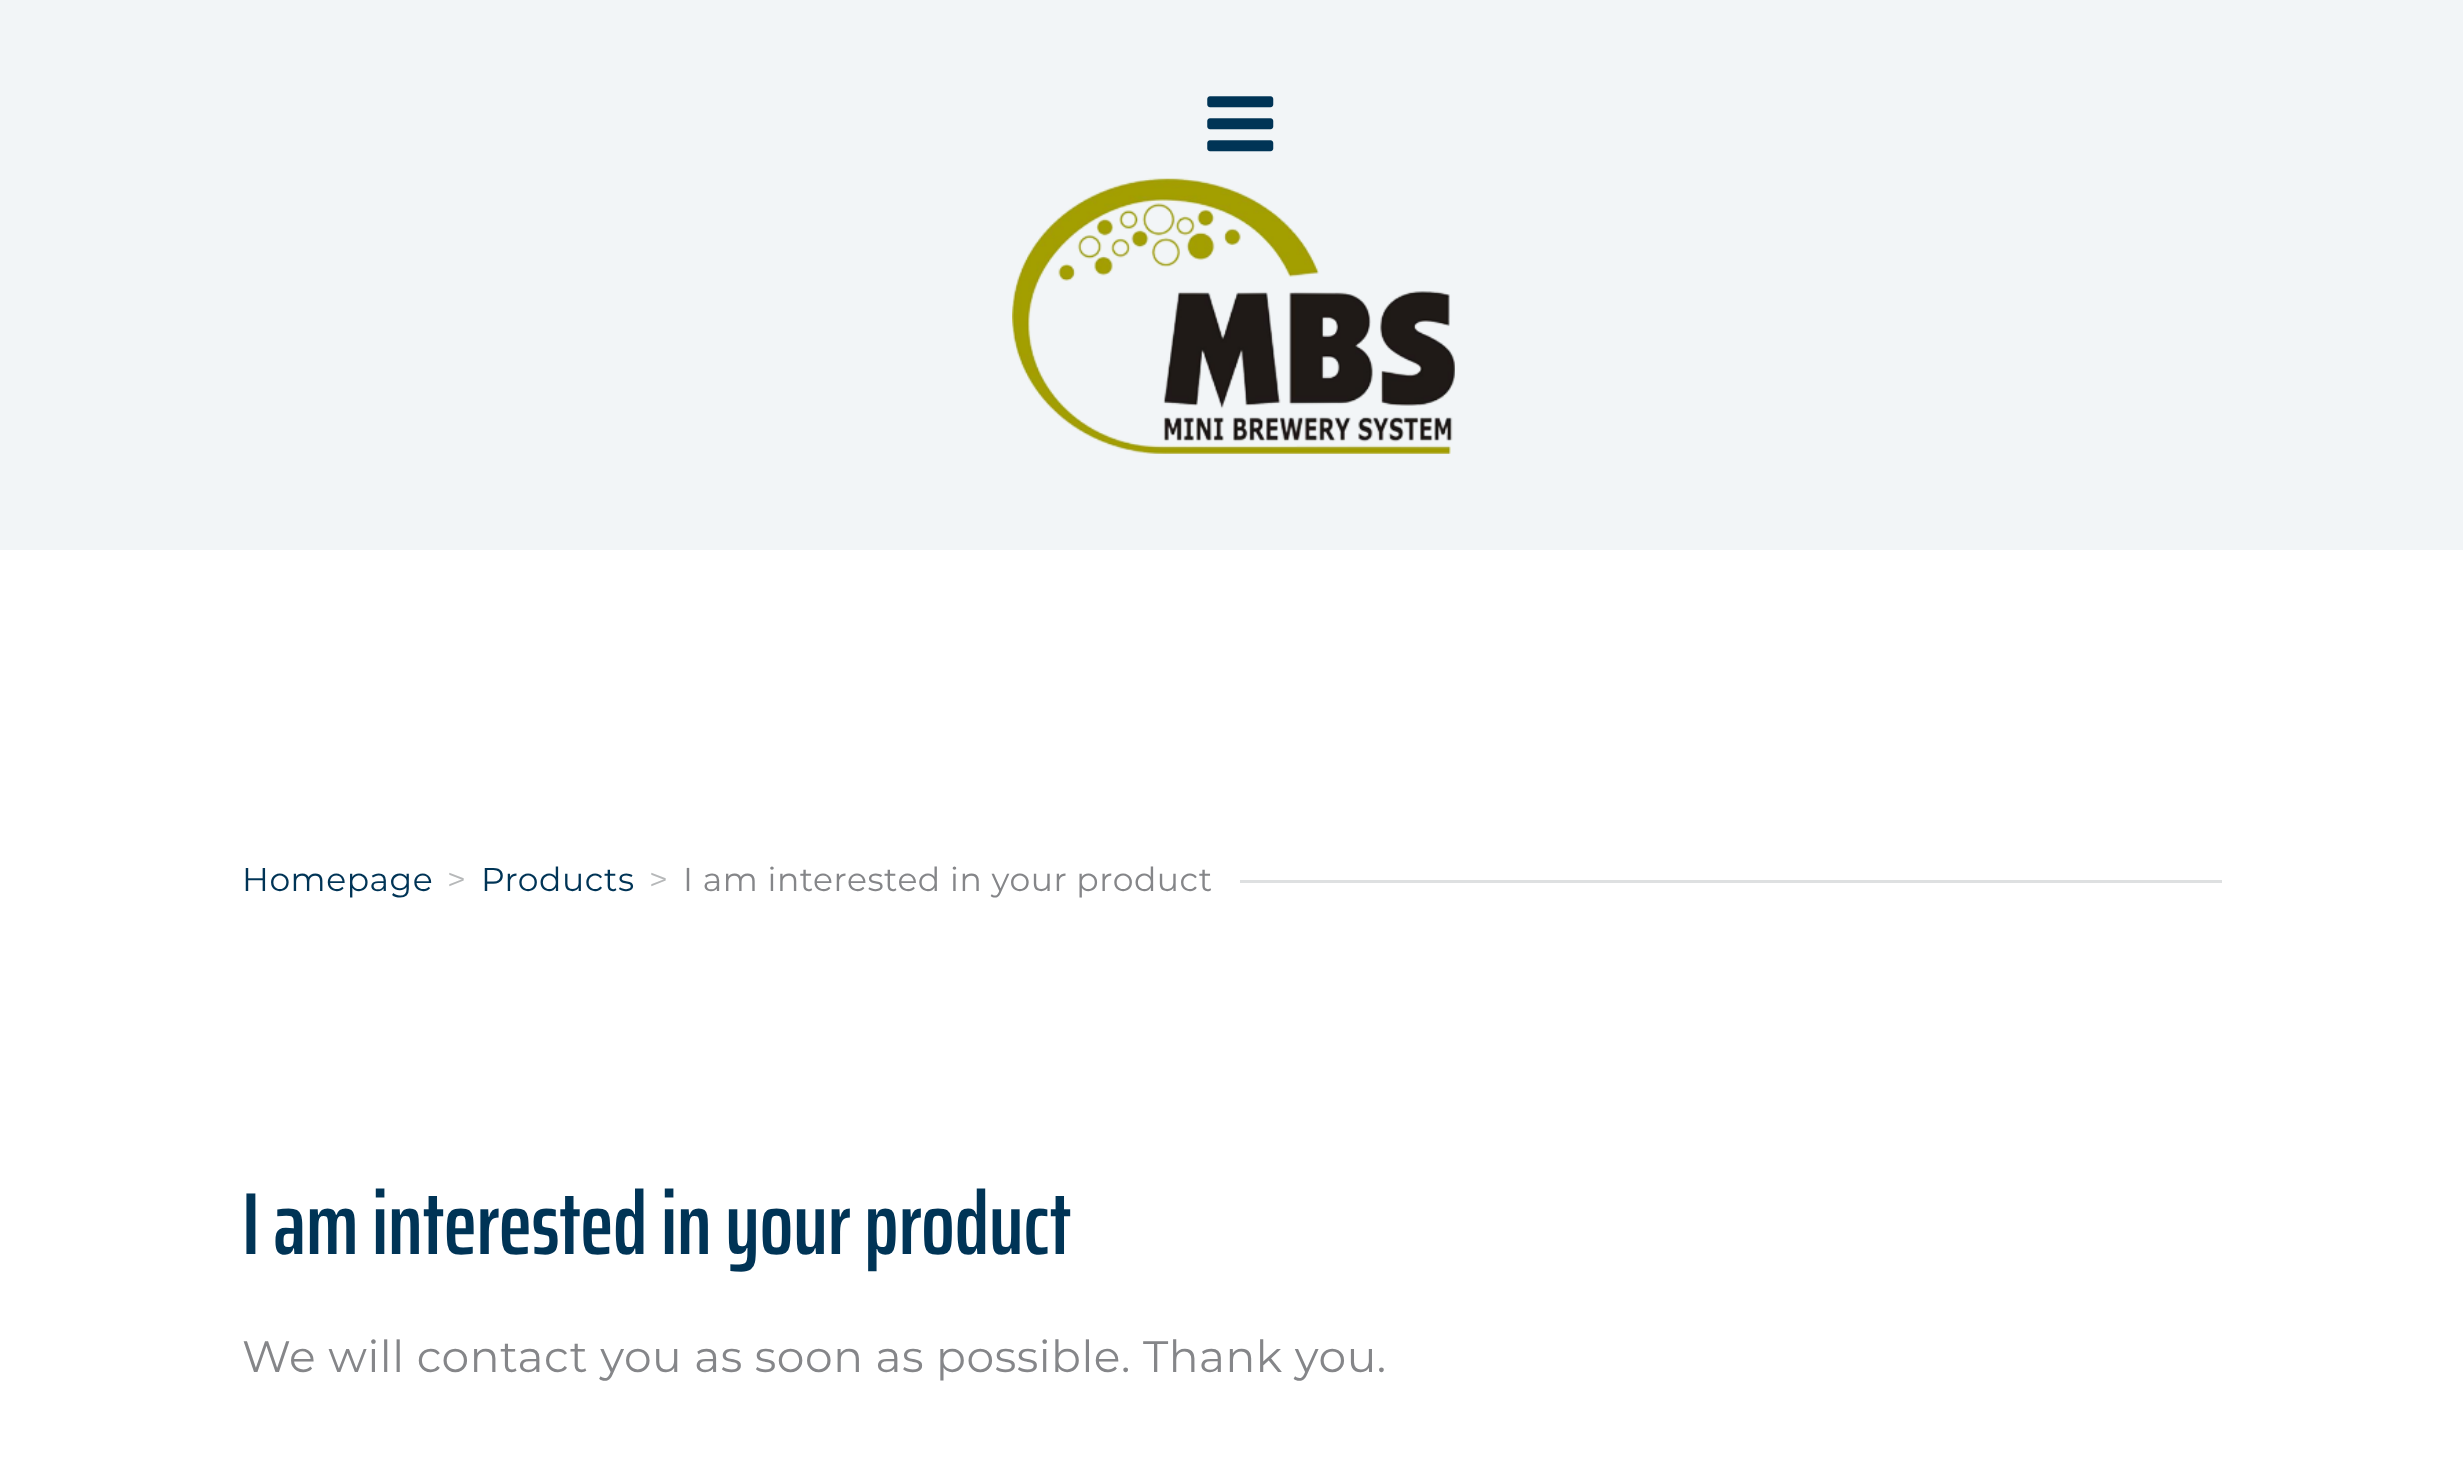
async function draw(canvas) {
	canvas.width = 2463;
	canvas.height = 1465;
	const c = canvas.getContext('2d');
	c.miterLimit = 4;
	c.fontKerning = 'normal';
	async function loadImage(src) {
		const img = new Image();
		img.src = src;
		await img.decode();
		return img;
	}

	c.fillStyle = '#fff';
	c.fillRect(0, 0, 2463, 1465);
	c.fillStyle = '#f2f5f7';
	c.fillRect(0, 0, 2463, 550);
	c.drawImage(await loadImage('img1.png'), 1207, 96, 67, 56);
	c.drawImage(await loadImage('img2.png'), 1012, 178, 443, 276);
	c.letterSpacing = '0.55px';
	c.font = '100 33px Montserrat';
	c.fillStyle = '#003456';
	c.fillText('Homepage', 242, 891);
	c.fillStyle = '#b6b8b9';
	c.fillText('>', 447, 891);
	c.fillStyle = '#003456';
	c.fillText('Products', 481, 891);
	c.fillStyle = '#b6b8b9';
	c.fillText('>', 649, 891);
	c.fillStyle = '#858689';
	c.fillText('I am interested in your product', 683, 891);
	c.fillStyle = '#dee0e1';
	c.fillRect(1240, 880, 982, 3);
	c.letterSpacing = '0px';
	c.font = '600 88px Saira ExtraCondensed';
	c.fillStyle = '#003456';
	c.fillText('I am interested in your product', 242, 1254);
	c.letterSpacing = '0.55px';
	c.font = '100 44px Montserrat';
	c.fillStyle = '#858689';
	c.fillText('We will contact you as soon as possible. Thank you.', 242, 1372);
}

draw(document.querySelector('canvas'));
